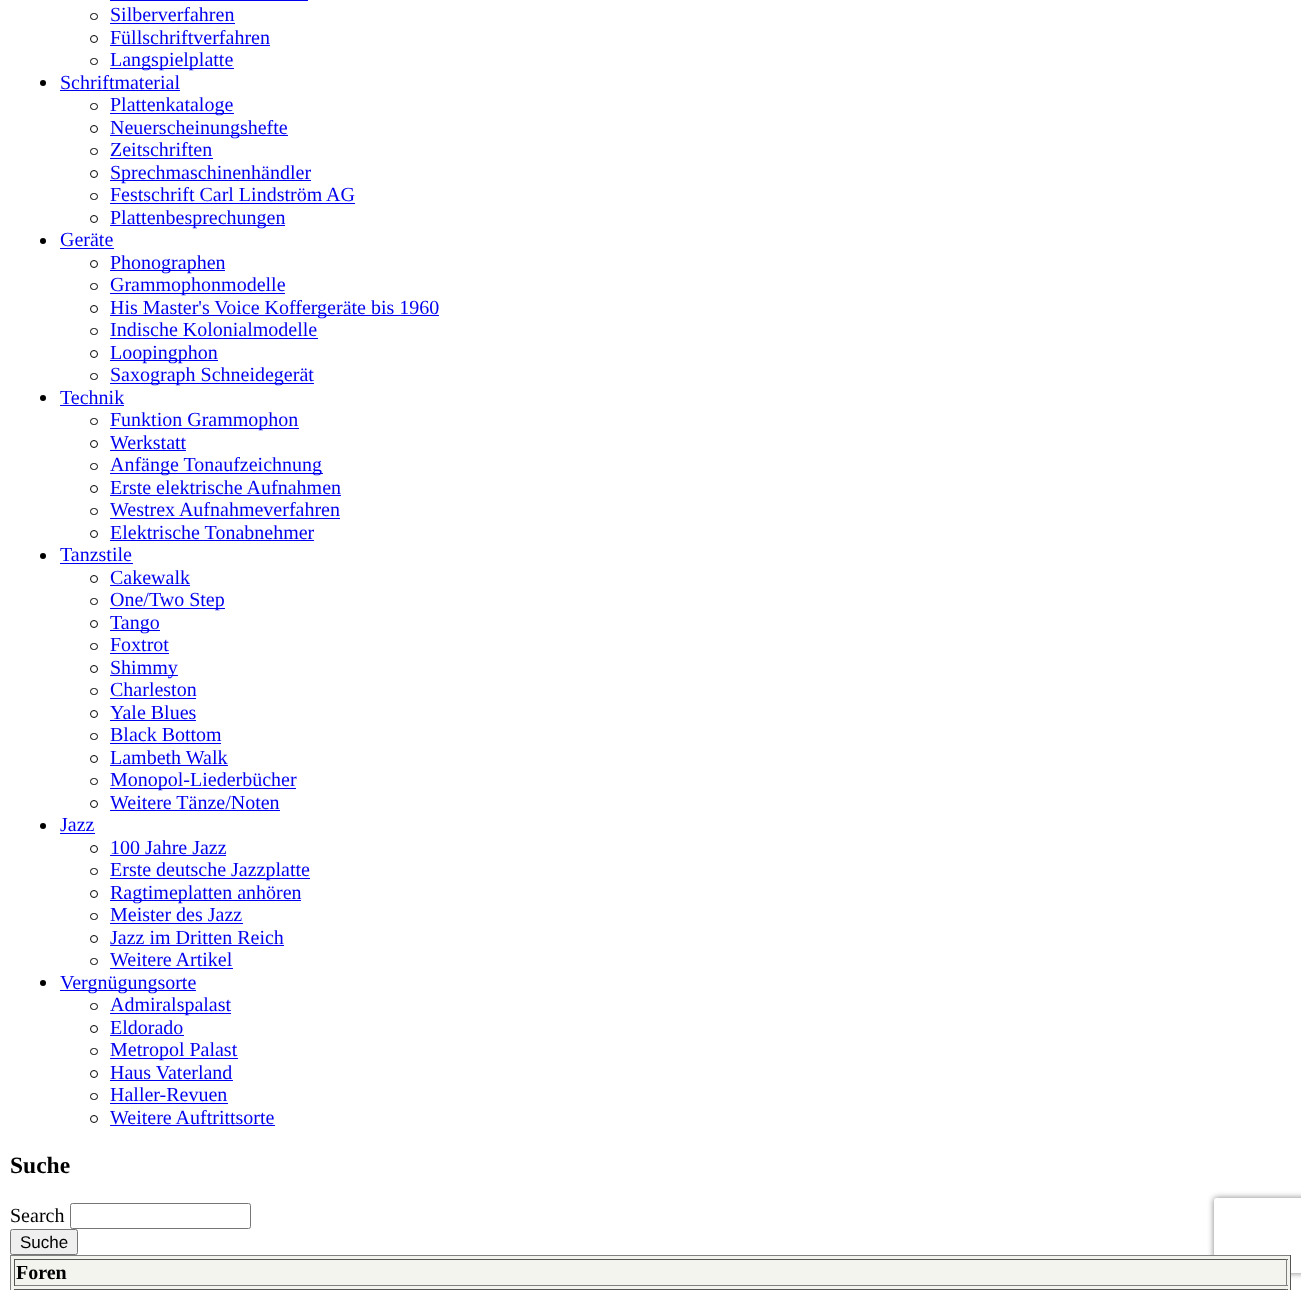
async function draw(canvas) {
	canvas.width = 1301;
	canvas.height = 1290;
	const c = canvas.getContext('2d');
	c.miterLimit = 4;
	c.fontKerning = 'normal';

	c.fillStyle = '#fff';
	c.fillRect(0, 0, 1301, 1290);
	c.fillStyle = '#00e';
	c.fillRect(110, 0, 198, 1);
	c.beginPath();
	c.roundRect(90.5, 13.5, 7, 6, 3);
	c.strokeStyle = '#000';
	c.stroke();
	c.font = '20px Liberation Serif';
	c.fillText('Silberverfahren', 110, 21);
	c.fillRect(110, 23, 125, 1);
	c.beginPath();
	c.arc(94, 39, 3.5, 0, 2 * Math.PI);
	c.stroke();
	c.fillText('Füllschriftverfahren', 110, 44);
	c.fillRect(110, 45, 160, 1);
	c.beginPath();
	c.roundRect(90.5, 58.5, 7, 6, 3);
	c.stroke();
	c.fillRect(110, 68, 124, 1);
	c.fillText('Langspielplatte', 110, 66);
	c.fillStyle = '#000';
	c.beginPath();
	c.arc(43, 83, 3, 0, 2 * Math.PI);
	c.fill();
	c.fillStyle = '#00e';
	c.fillText('Schriftmaterial', 60, 89);
	c.fillRect(60, 90, 120, 1);
	c.beginPath();
	c.roundRect(90.5, 103.5, 7, 6, 3);
	c.stroke();
	c.fillRect(110, 113, 124, 1);
	c.fillText('Plattenkataloge', 110, 111);
	c.beginPath();
	c.arc(94, 129, 3.5, 0, 2 * Math.PI);
	c.stroke();
	c.fillRect(110, 135, 178, 1);
	c.fillText('Neuerscheinungshefte', 110, 134);
	c.beginPath();
	c.roundRect(90.5, 148.5, 7, 6, 3);
	c.stroke();
	c.fillText('Zeitschriften', 110, 156);
	c.fillRect(110, 158, 103, 1);
	c.beginPath();
	c.arc(94, 174, 3.5, 0, 2 * Math.PI);
	c.stroke();
	c.fillRect(110, 180, 201, 1);
	c.fillText('Sprechmaschinenhändler', 110, 179);
	c.beginPath();
	c.roundRect(90.5, 193.5, 7, 6, 3);
	c.stroke();
	c.fillText('Festschrift Carl Lindström AG', 110, 201);
	c.fillRect(110, 203, 245, 1);
	c.beginPath();
	c.arc(94, 219, 3.5, 0, 2 * Math.PI);
	c.stroke();
	c.fillRect(110, 225, 175, 1);
	c.fillText('Plattenbesprechungen', 110, 224);
	c.fillStyle = '#000';
	c.beginPath();
	c.arc(43, 241, 3, 0, 2 * Math.PI);
	c.fill();
	c.fillStyle = '#00e';
	c.fillText('Geräte', 60, 246);
	c.fillRect(60, 248, 54, 1);
	c.beginPath();
	c.arc(94, 264, 3.5, 0, 2 * Math.PI);
	c.stroke();
	c.fillRect(110, 270, 115, 1);
	c.fillText('Phonographen', 110, 269);
	c.beginPath();
	c.roundRect(90.5, 283.5, 7, 6, 3);
	c.stroke();
	c.fillRect(110, 293, 175, 1);
	c.fillText('Grammophonmodelle', 110, 291);
	c.beginPath();
	c.arc(94, 309, 3.5, 0, 2 * Math.PI);
	c.stroke();
	c.fillRect(110, 315, 329, 1);
	c.fillText('His Master\'s Voice Koffergeräte bis 1960', 110, 314);
	c.beginPath();
	c.roundRect(90.5, 328.5, 7, 6, 3);
	c.stroke();
	c.fillText('Indische Kolonialmodelle', 110, 336);
	c.fillRect(110, 338, 208, 1);
	c.beginPath();
	c.arc(94, 354, 3.5, 0, 2 * Math.PI);
	c.stroke();
	c.fillRect(110, 360, 108, 1);
	c.fillText('Loopingphon', 110, 359);
	c.beginPath();
	c.roundRect(90.5, 373.5, 7, 6, 3);
	c.stroke();
	c.fillRect(110, 383, 204, 1);
	c.fillText('Saxograph Schneidegerät', 110, 381);
	c.fillStyle = '#000';
	c.beginPath();
	c.arc(43, 398, 3, 0, 2 * Math.PI);
	c.fill();
	c.fillStyle = '#00e';
	c.fillText('Technik', 60, 404);
	c.fillRect(60, 405, 64, 1);
	c.beginPath();
	c.roundRect(90.5, 418.5, 7, 6, 3);
	c.stroke();
	c.fillRect(110, 428, 189, 1);
	c.fillText('Funktion Grammophon', 110, 426);
	c.beginPath();
	c.arc(94, 444, 3.5, 0, 2 * Math.PI);
	c.stroke();
	c.fillText('Werkstatt', 110, 449);
	c.fillRect(110, 450, 76, 1);
	c.beginPath();
	c.roundRect(90.5, 463.5, 7, 6, 3);
	c.stroke();
	c.fillRect(110, 473, 213, 1);
	c.fillText('Anfänge Tonaufzeichnung', 110, 471);
	c.beginPath();
	c.arc(94, 489, 3.5, 0, 2 * Math.PI);
	c.stroke();
	c.fillText('Erste elektrische Aufnahmen', 110, 494);
	c.fillRect(110, 495, 231, 1);
	c.beginPath();
	c.roundRect(90.5, 508.5, 7, 6, 3);
	c.stroke();
	c.fillText('Westrex Aufnahmeverfahren', 110, 516);
	c.fillRect(110, 518, 230, 1);
	c.beginPath();
	c.arc(94, 534, 3.5, 0, 2 * Math.PI);
	c.stroke();
	c.fillText('Elektrische Tonabnehmer', 110, 539);
	c.fillRect(110, 540, 204, 1);
	c.fillStyle = '#000';
	c.beginPath();
	c.arc(43, 556, 3, 0, 2 * Math.PI);
	c.fill();
	c.fillStyle = '#00e';
	c.fillText('Tanzstile', 60, 561);
	c.fillRect(60, 563, 73, 1);
	c.beginPath();
	c.arc(94, 579, 3.5, 0, 2 * Math.PI);
	c.stroke();
	c.fillText('Cakewalk', 110, 584);
	c.fillRect(110, 585, 80, 1);
	c.beginPath();
	c.roundRect(90.5, 598.5, 7, 6, 3);
	c.stroke();
	c.fillRect(110, 608, 115, 1);
	c.fillText('One/Two Step', 110, 606);
	c.beginPath();
	c.arc(94, 624, 3.5, 0, 2 * Math.PI);
	c.stroke();
	c.fillRect(110, 630, 50, 1);
	c.fillText('Tango', 110, 629);
	c.beginPath();
	c.roundRect(90.5, 643.5, 7, 6, 3);
	c.stroke();
	c.fillText('Foxtrot', 110, 651);
	c.fillRect(110, 653, 59, 1);
	c.beginPath();
	c.arc(94, 669, 3.5, 0, 2 * Math.PI);
	c.stroke();
	c.fillRect(110, 675, 68, 1);
	c.fillText('Shimmy', 110, 674);
	c.beginPath();
	c.roundRect(90.5, 688.5, 7, 6, 3);
	c.stroke();
	c.fillText('Charleston', 110, 696);
	c.fillRect(110, 698, 86, 1);
	c.beginPath();
	c.arc(94, 714, 3.5, 0, 2 * Math.PI);
	c.stroke();
	c.fillText('Yale Blues', 110, 719);
	c.fillRect(110, 720, 86, 1);
	c.beginPath();
	c.roundRect(90.5, 733.5, 7, 6, 3);
	c.stroke();
	c.fillText('Black Bottom', 110, 741);
	c.fillRect(110, 743, 111, 1);
	c.beginPath();
	c.arc(94, 759, 3.5, 0, 2 * Math.PI);
	c.stroke();
	c.fillText('Lambeth Walk', 110, 764);
	c.fillRect(110, 765, 118, 1);
	c.beginPath();
	c.roundRect(90.5, 778.5, 7, 6, 3);
	c.stroke();
	c.fillRect(110, 788, 186, 1);
	c.fillText('Monopol-Liederbücher', 110, 786);
	c.beginPath();
	c.arc(94, 804, 3.5, 0, 2 * Math.PI);
	c.stroke();
	c.fillText('Weitere Tänze/Noten', 110, 809);
	c.fillRect(110, 810, 170, 1);
	c.fillStyle = '#000';
	c.beginPath();
	c.arc(43, 826, 3, 0, 2 * Math.PI);
	c.fill();
	c.fillStyle = '#00e';
	c.fillText('Jazz', 60, 831);
	c.fillRect(60, 833, 35, 1);
	c.beginPath();
	c.arc(94, 849, 3.5, 0, 2 * Math.PI);
	c.stroke();
	c.fillText('100 Jahre Jazz', 110, 854);
	c.fillRect(110, 855, 116, 1);
	c.beginPath();
	c.roundRect(90.5, 868.5, 7, 6, 3);
	c.stroke();
	c.fillRect(110, 878, 200, 1);
	c.fillText('Erste deutsche Jazzplatte', 110, 876);
	c.beginPath();
	c.arc(94, 894, 3.5, 0, 2 * Math.PI);
	c.stroke();
	c.fillRect(110, 900, 191, 1);
	c.fillText('Ragtimeplatten anhören', 110, 899);
	c.beginPath();
	c.roundRect(90.5, 913.5, 7, 6, 3);
	c.stroke();
	c.fillText('Meister des Jazz', 110, 921);
	c.fillRect(110, 923, 133, 1);
	c.beginPath();
	c.arc(94, 939, 3.5, 0, 2 * Math.PI);
	c.stroke();
	c.fillText('Jazz im Dritten Reich', 110, 944);
	c.fillRect(110, 945, 174, 1);
	c.beginPath();
	c.roundRect(90.5, 958.5, 7, 6, 3);
	c.stroke();
	c.fillText('Weitere Artikel', 110, 966);
	c.fillRect(110, 968, 123, 1);
	c.fillStyle = '#000';
	c.beginPath();
	c.arc(43, 983, 3, 0, 2 * Math.PI);
	c.fill();
	c.fillStyle = '#00e';
	c.fillRect(60, 990, 136, 1);
	c.fillText('Vergnügungsorte', 60, 989);
	c.beginPath();
	c.roundRect(90.5, 1003.5, 7, 6, 3);
	c.stroke();
	c.fillRect(110, 1013, 121, 1);
	c.fillText('Admiralspalast', 110, 1011);
	c.beginPath();
	c.arc(94, 1029, 3.5, 0, 2 * Math.PI);
	c.stroke();
	c.fillText('Eldorado', 110, 1034);
	c.fillRect(110, 1035, 74, 1);
	c.beginPath();
	c.roundRect(90.5, 1048.5, 7, 6, 3);
	c.stroke();
	c.fillRect(110, 1058, 128, 1);
	c.fillText('Metropol Palast', 110, 1056);
	c.beginPath();
	c.arc(94, 1074, 3.5, 0, 2 * Math.PI);
	c.stroke();
	c.fillText('Haus Vaterland', 110, 1079);
	c.fillRect(110, 1080, 123, 1);
	c.beginPath();
	c.roundRect(90.5, 1093.5, 7, 6, 3);
	c.stroke();
	c.fillText('Haller-Revuen', 110, 1101);
	c.fillRect(110, 1103, 118, 1);
	c.beginPath();
	c.arc(94, 1119, 3.5, 0, 2 * Math.PI);
	c.stroke();
	c.fillText('Weitere Auftrittsorte', 110, 1124);
	c.fillRect(110, 1125, 165, 1);
	c.font = 'bold 23.5px Liberation Serif';
	c.fillStyle = '#000';
	c.fillText('Suche', 10, 1173);
	c.font = '20px Liberation Serif';
	c.fillText('Search', 10, 1222);
	c.beginPath();
	c.roundRect(70.5, 1203.5, 180, 25, 2);
	c.strokeStyle = '#767676';
	c.stroke();
	c.fillStyle = '#efefef';
	c.beginPath();
	c.roundRect(10.5, 1229.5, 67, 25, 2);
	c.fill();
	c.stroke();
	c.font = '17px Liberation Sans';
	c.fillStyle = '#000';
	c.fillText('Suche', 20, 1248);
	c.save();
	c.beginPath();
	c.moveTo(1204, 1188);
	c.lineTo(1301, 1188);
	c.lineTo(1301, 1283);
	c.lineTo(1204, 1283);
	c.closePath();
	c.moveTo(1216.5, 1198);
	c.lineTo(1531.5, 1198);
	c.bezierCurveTo(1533, 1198, 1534, 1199, 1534, 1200.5);
	c.lineTo(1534, 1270.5);
	c.bezierCurveTo(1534, 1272, 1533, 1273, 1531.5, 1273);
	c.lineTo(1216.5, 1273);
	c.bezierCurveTo(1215, 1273, 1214, 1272, 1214, 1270.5);
	c.lineTo(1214, 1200.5);
	c.bezierCurveTo(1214, 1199, 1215, 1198, 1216.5, 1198);
	c.closePath();
	c.clip('evenodd');
	c.fillStyle = '#808080';
	c.filter = 'blur(3px)';
	c.beginPath();
	c.roundRect(1214, 1198, 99, 75, 2.5);
	c.fill();
	c.filter = 'none';
	c.restore();
	for (const [x, y, w, h, color] of [
		[11, 1256, 1279, 34, '#f4f4ef'],
		[10, 1255, 1281, 1, '#808080'],
		[1290, 1255, 1, 35, '#555'],
		[10, 1255, 1, 35, '#808080'],
		[14, 1259, 1274, 1, '#555'],
		[1286, 1259, 1, 27, '#808080'],
		[14, 1285, 1274, 1, '#808080'],
		[14, 1259, 1, 27, '#555'],
	]) {
		c.fillStyle = color;
		c.fillRect(x, y, w, h);
	}
	c.font = 'bold 20px Liberation Serif';
	c.fillStyle = '#000';
	c.fillText('Foren', 16, 1279);
	c.fillStyle = '#555';
	c.fillRect(14, 1289, 1274, 1);
	c.fillStyle = '#808080';
	c.fillRect(1286, 1289, 1, 1);
}

draw(document.querySelector('canvas'));
